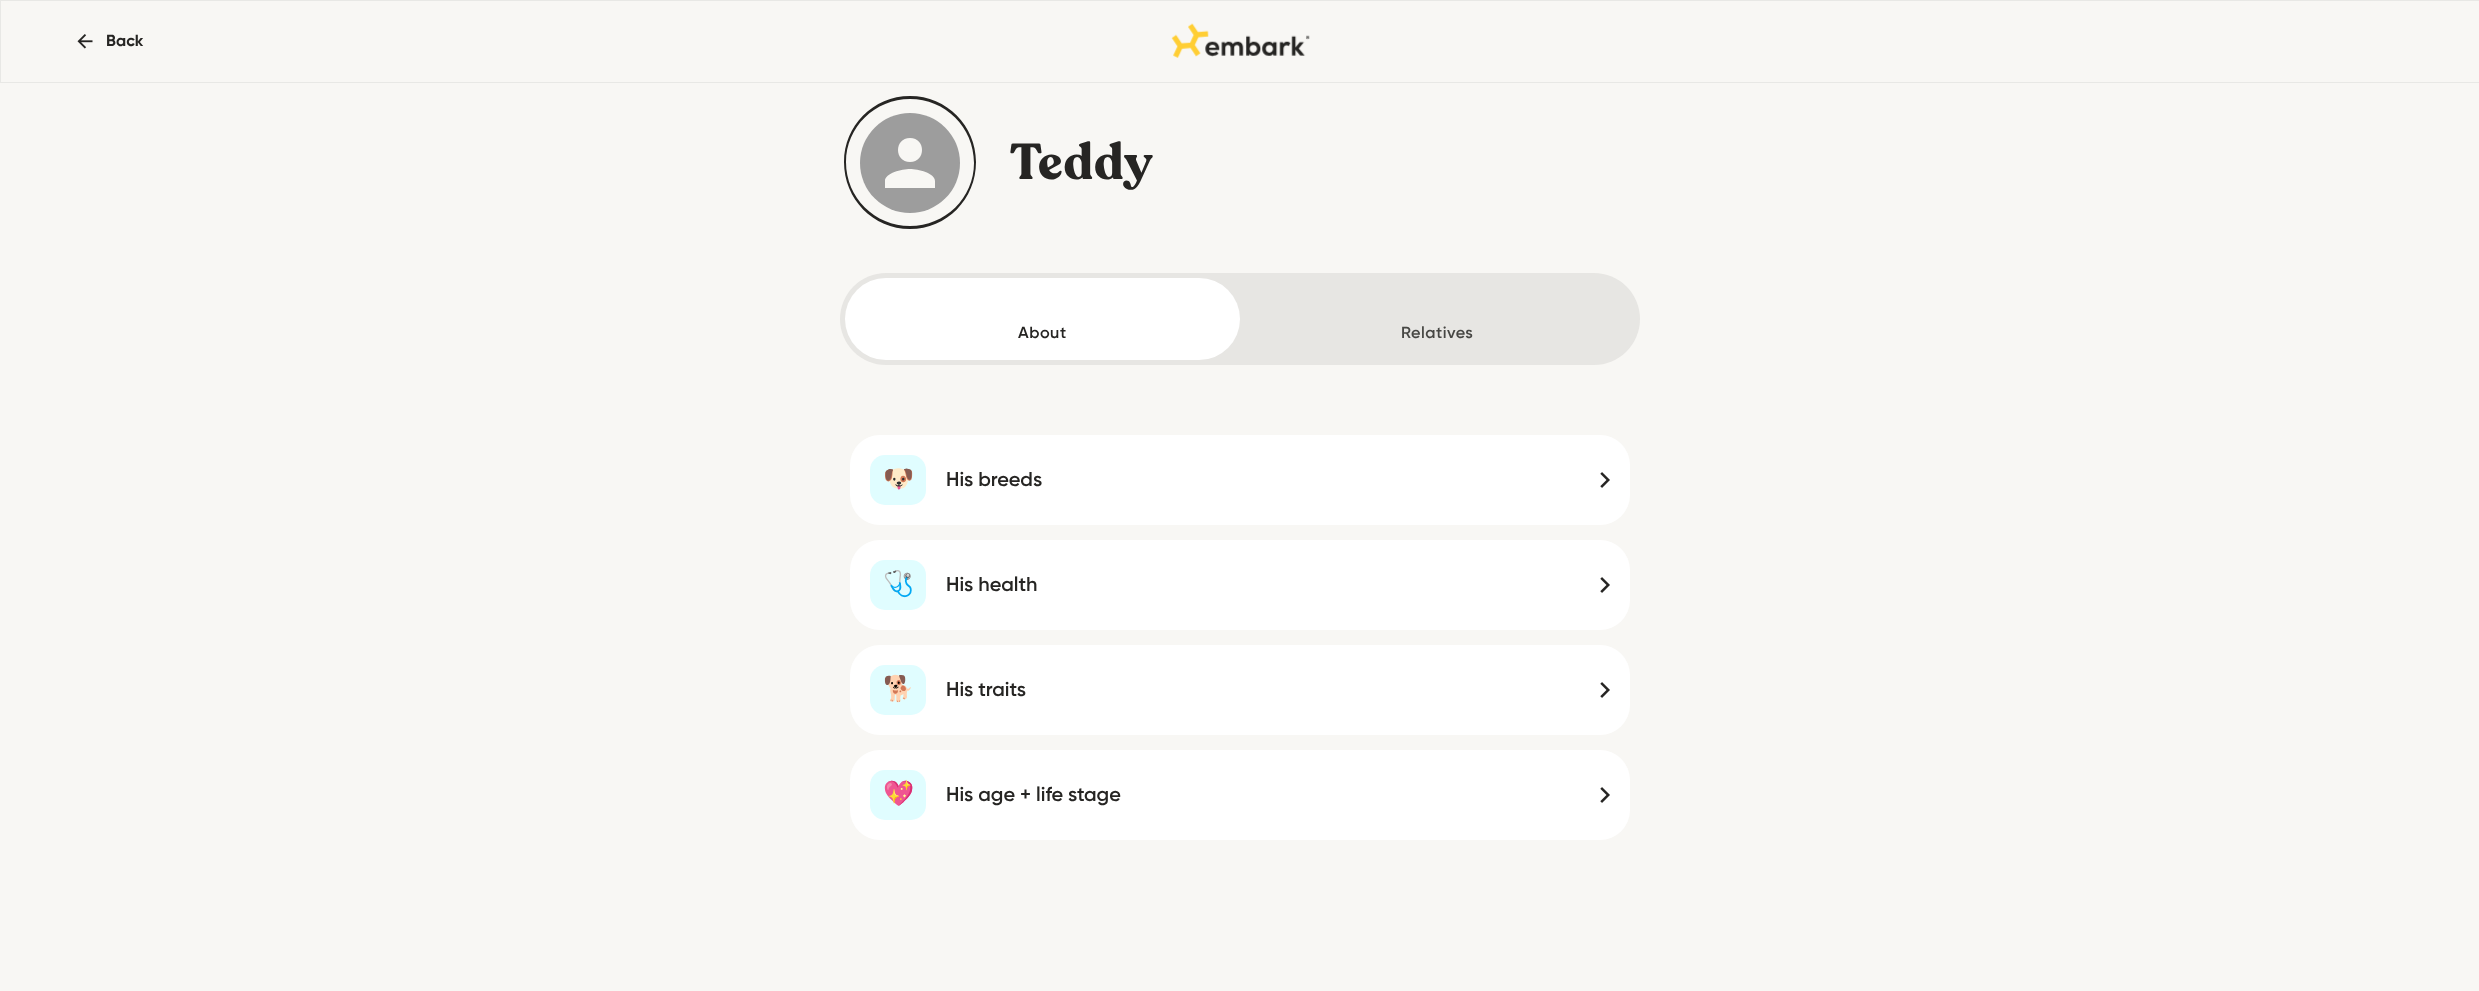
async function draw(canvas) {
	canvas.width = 2479;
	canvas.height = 991;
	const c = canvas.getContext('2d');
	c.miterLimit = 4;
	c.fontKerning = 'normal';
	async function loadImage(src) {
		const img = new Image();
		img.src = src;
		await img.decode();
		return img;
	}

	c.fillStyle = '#f8f7f4';
	c.fillRect(0, 0, 2479, 991);
	c.strokeStyle = '#e8e8e5';
	c.strokeRect(0.5, 0.5, 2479, 82);
	c.drawImage(await loadImage('img1.png'), 77, 34, 16, 15);
	c.font = 'bold 16.25px Gilroy';
	c.fillStyle = '#262523';
	c.fillText('Back', 106, 46);
	c.drawImage(await loadImage('img2.png'), 1171, 23, 139, 35);
	c.beginPath();
	c.moveTo(910, 96);
	c.bezierCurveTo(947, 96, 976, 126, 976, 162);
	c.bezierCurveTo(976, 199, 947, 229, 910, 229);
	c.bezierCurveTo(873, 229, 844, 199, 844, 162);
	c.bezierCurveTo(844, 126, 873, 96, 910, 96);
	c.moveTo(910, 99);
	c.bezierCurveTo(875, 99, 846, 127, 846, 162);
	c.bezierCurveTo(846, 198, 875, 226, 910, 226);
	c.bezierCurveTo(945, 226, 974, 198, 974, 163);
	c.bezierCurveTo(974, 127, 945, 99, 910, 99);
	c.closePath();
	c.fill();
	c.fillStyle = '#9d9d9d';
	c.beginPath();
	c.arc(910, 163, 50, 0, 2 * Math.PI);
	c.fill();
	c.fillStyle = '#f8f7f4';
	c.beginPath();
	c.moveTo(910, 162);
	c.bezierCurveTo(926, 162, 926, 138, 910, 138);
	c.bezierCurveTo(894, 138, 894, 162, 910, 162);
	c.closePath();
	c.moveTo(910, 169);
	c.bezierCurveTo(902, 169, 885, 173, 885, 181);
	c.lineTo(885, 188);
	c.lineTo(935, 188);
	c.lineTo(935, 181);
	c.bezierCurveTo(935, 173, 918, 169, 910, 169);
	c.closePath();
	c.fill();
	c.letterSpacing = '1px';
	c.font = 'bold 50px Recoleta';
	c.fillStyle = '#262523';
	c.fillText('Teddy', 1010, 179);
	c.fillStyle = '#e7e6e3';
	c.beginPath();
	c.roundRect(840, 273, 800, 92, 46);
	c.fill();
	c.fillStyle = '#fff';
	c.beginPath();
	c.roundRect(845, 278, 395, 82, 41);
	c.fill();
	c.letterSpacing = '0.5px';
	c.font = '600 16.25px Gilroy';
	c.fillStyle = '#262523';
	c.fillText('About', 1018, 338);
	c.fillStyle = '#474744';
	c.fillText('Relatives', 1401, 338);
	c.fillStyle = '#fff';
	c.beginPath();
	c.roundRect(850, 435, 780, 90, 30);
	c.fill();
	c.fillStyle = '#e0fdff';
	c.beginPath();
	c.roundRect(870, 455, 56, 50, 15);
	c.fill();
	c.letterSpacing = '0px';
	c.font = '25px Noto Color Emoji';
	c.fillStyle = '#262523';
	c.fillText('🐶', 883, 487);
	c.font = '600 20px Gilroy';
	c.fillText('His breeds', 946, 486);
	c.drawImage(await loadImage('img3.png'), 1600, 472, 10, 16);
	c.fillStyle = '#fff';
	c.beginPath();
	c.roundRect(850, 540, 780, 90, 30);
	c.fill();
	c.fillStyle = '#e0fdff';
	c.beginPath();
	c.roundRect(870, 560, 56, 50, 15);
	c.fill();
	c.font = '25px Noto Color Emoji';
	c.fillStyle = '#262523';
	c.fillText('🩺', 883, 592);
	c.font = '600 20px Gilroy';
	c.fillText('His health', 946, 591);
	c.drawImage(await loadImage('img3.png'), 1600, 577, 10, 16);
	c.fillStyle = '#fff';
	c.beginPath();
	c.roundRect(850, 645, 780, 90, 30);
	c.fill();
	c.fillStyle = '#e0fdff';
	c.beginPath();
	c.roundRect(870, 665, 56, 50, 15);
	c.fill();
	c.font = '25px Noto Color Emoji';
	c.fillStyle = '#262523';
	c.fillText('🐕', 883, 697);
	c.font = '600 20px Gilroy';
	c.fillText('His traits', 946, 696);
	c.drawImage(await loadImage('img3.png'), 1600, 682, 10, 16);
	c.fillStyle = '#fff';
	c.beginPath();
	c.roundRect(850, 750, 780, 90, 30);
	c.fill();
	c.fillStyle = '#e0fdff';
	c.beginPath();
	c.roundRect(870, 770, 56, 50, 15);
	c.fill();
	c.font = '25px Noto Color Emoji';
	c.fillStyle = '#262523';
	c.fillText('💖', 883, 802);
	c.font = '600 20px Gilroy';
	c.fillText('His age + life stage', 946, 801);
	c.drawImage(await loadImage('img3.png'), 1600, 787, 10, 16);
}

draw(document.querySelector('canvas'));
